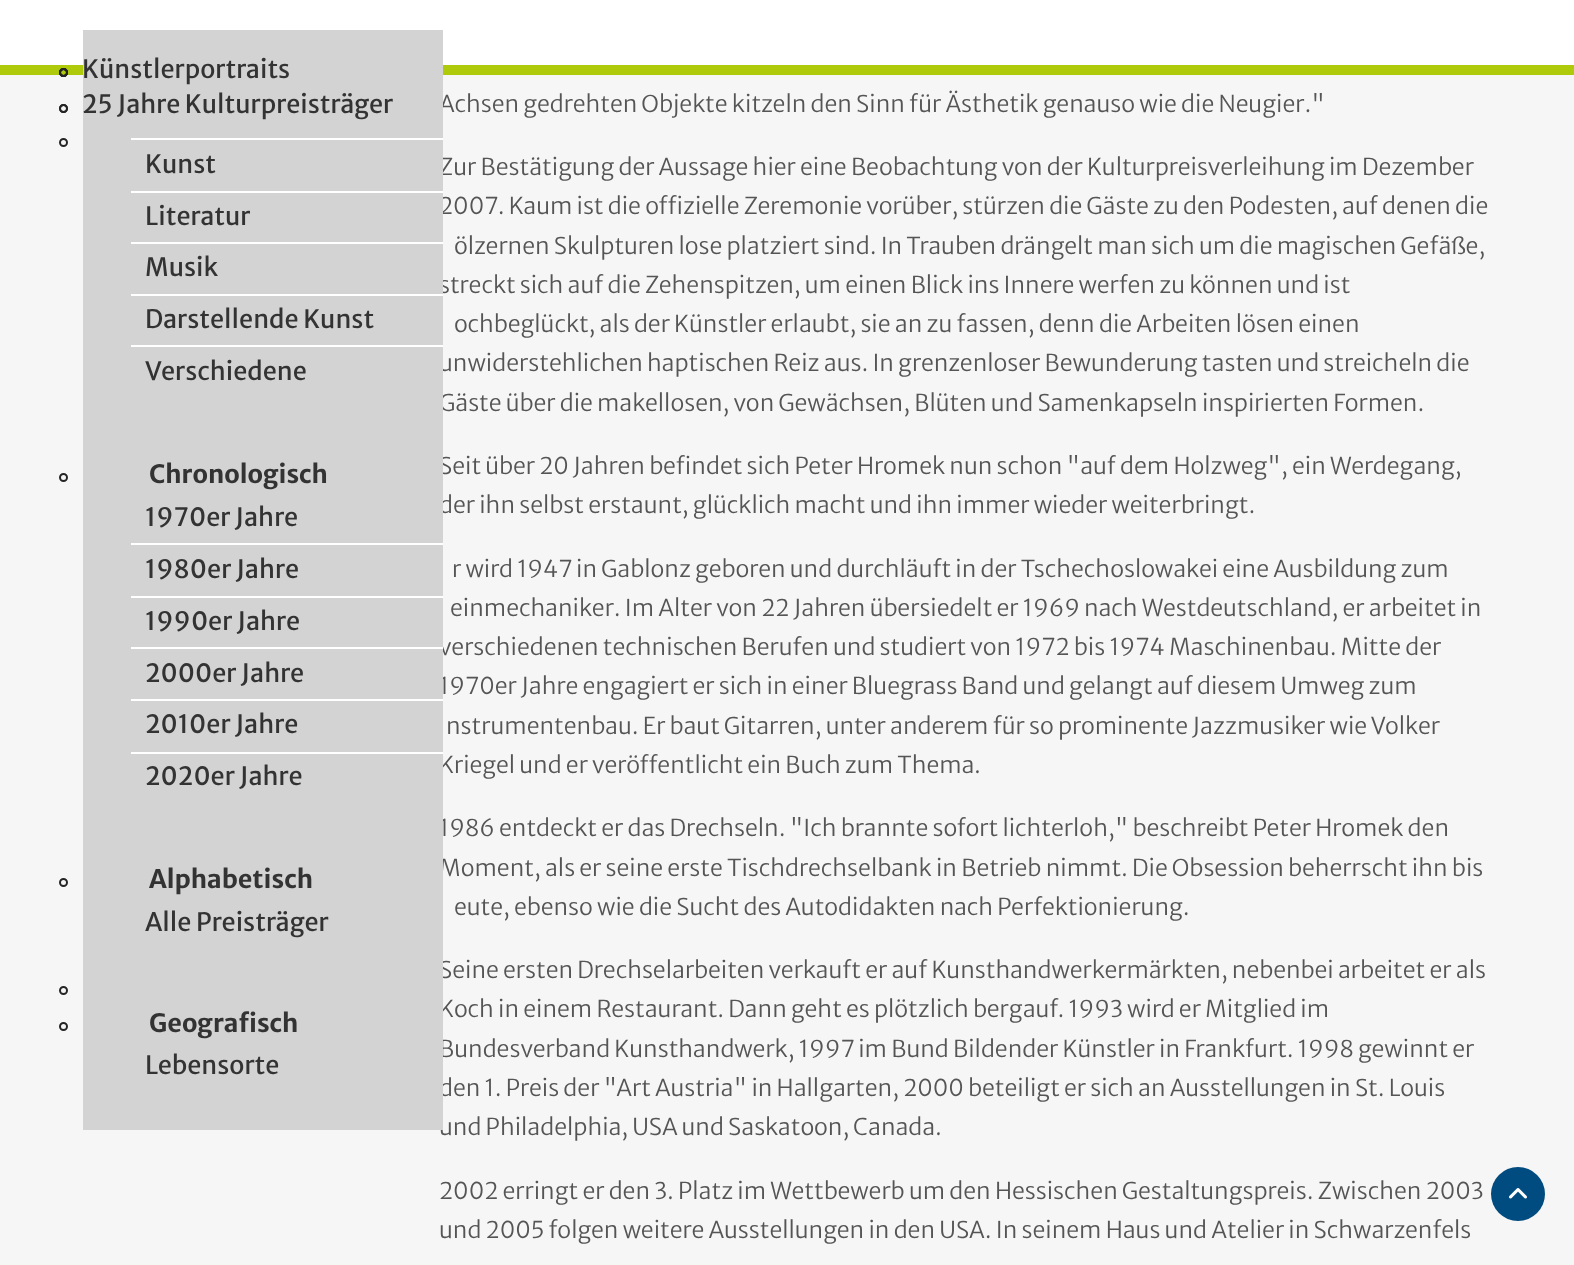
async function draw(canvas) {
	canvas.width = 1574;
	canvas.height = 1265;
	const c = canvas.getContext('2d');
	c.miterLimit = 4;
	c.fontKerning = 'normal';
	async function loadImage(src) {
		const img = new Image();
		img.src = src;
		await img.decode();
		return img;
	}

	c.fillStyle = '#f6f6f6';
	c.fillRect(0, 0, 1574, 1265);
	c.fillStyle = '#fff';
	c.fillRect(0, 0, 1574, 65);
	c.fillStyle = '#afca0a';
	c.fillRect(0, 65, 1574, 10);
	c.beginPath();
	c.arc(63.5, 72.5, 3.5, 0, 2 * Math.PI);
	c.strokeStyle = '#252525';
	c.lineWidth = 2;
	c.stroke();
	c.beginPath();
	c.arc(63.5, 108.5, 3.5, 0, 2 * Math.PI);
	c.stroke();
	c.beginPath();
	c.arc(63.5, 142.5, 3.5, 0, 2 * Math.PI);
	c.stroke();
	c.beginPath();
	c.arc(63.5, 72.5, 3.5, 0, 2 * Math.PI);
	c.stroke();
	c.beginPath();
	c.arc(63.5, 72.5, 3.5, 0, 2 * Math.PI);
	c.stroke();
	c.beginPath();
	c.arc(63.5, 72.5, 3.5, 0, 2 * Math.PI);
	c.stroke();
	c.font = '300 23.1px Merriweather Sans';
	c.fillStyle = '#555';
	for (const [text, x, y] of [
		['Achsen gedrehten Objekte kitzeln den Sinn für Ästhetik genauso wie die Neugier."', 439, 112],
		['Zur Bestätigung der Aussage hier eine Beobachtung von der Kulturpreisverleihung im Dezember', 439, 175],
		['2007. Kaum ist die offizielle Zeremonie vorüber, stürzen die Gäste zu den Podesten, auf denen die', 439, 214],
		['streckt sich auf die Zehenspitzen, um einen Blick ins Innere werfen zu können und ist', 439, 293],
		['unwiderstehlichen haptischen Reiz aus. In grenzenloser Bewunderung tasten und streicheln die', 439, 371],
		['Gäste über die makellosen, von Gewächsen, Blüten und Samenkapseln inspirierten Formen.', 439, 411],
		['Seit über 20 Jahren befindet sich Peter Hromek nun schon "auf dem Holzweg", ein Werdegang,', 439, 474],
		['der ihn selbst erstaunt, glücklich macht und ihn immer wieder weiterbringt.', 439, 513],
		['verschiedenen technischen Berufen und studiert von 1972 bis 1974 Maschinenbau. Mitte der', 439, 655],
		['1970er Jahre engagiert er sich in einer Bluegrass Band und gelangt auf diesem Umweg zum', 439, 694],
		['Kriegel und er veröffentlicht ein Buch zum Thema.', 439, 773],
		['1986 entdeckt er das Drechseln. "Ich brannte sofort lichterloh," beschreibt Peter Hromek den', 439, 836],
		['Moment, als er seine erste Tischdrechselbank in Betrieb nimmt. Die Obsession beherrscht ihn bis', 439, 876],
		['Seine ersten Drechselarbeiten verkauft er auf Kunsthandwerkermärkten, nebenbei arbeitet er als', 439, 978],
		['Koch in einem Restaurant. Dann geht es plötzlich bergauf. 1993 wird er Mitglied im', 439, 1017],
		['Bundesverband Kunsthandwerk, 1997 im Bund Bildender Künstler in Frankfurt. 1998 gewinnt er', 439, 1057],
		['den 1. Preis der "Art Austria" in Hallgarten, 2000 beteiligt er sich an Ausstellungen in St. Louis', 439, 1096],
		['und Philadelphia, USA und Saskatoon, Canada.', 439, 1135],
	]) {
		c.fillText(text, x, y);
	}
	c.fillStyle = '#d3d3d3';
	c.fillRect(83, 30, 360, 1100);
	c.font = '25.25px Merriweather Sans';
	c.fillStyle = '#333';
	c.fillText('Künstlerportraits', 82, 78);
	c.beginPath();
	c.arc(63.5, 108.5, 3.5, 0, 2 * Math.PI);
	c.stroke();
	c.fillText('25 Jahre Kulturpreisträger', 82, 113);
	c.fillStyle = '#fff';
	c.fillRect(131, 138, 312, 2);
	c.fillStyle = '#333';
	c.fillText('Kunst', 145, 173);
	c.fillStyle = '#fff';
	c.fillRect(131, 191, 312, 2);
	c.fillStyle = '#333';
	c.fillText('Literatur', 145, 225);
	c.fillStyle = '#fff';
	c.fillRect(131, 242, 312, 2);
	c.fillStyle = '#333';
	c.fillText('Musik', 145, 276);
	c.fillStyle = '#fff';
	c.fillRect(131, 294, 312, 2);
	c.fillStyle = '#333';
	c.fillText('Darstellende Kunst', 145, 328);
	c.fillStyle = '#fff';
	c.fillRect(131, 345, 312, 2);
	c.fillStyle = '#333';
	c.fillText('Verschiedene', 145, 380);
	c.beginPath();
	c.arc(63.5, 477.5, 3.5, 0, 2 * Math.PI);
	c.stroke();
	c.font = 'bold 25.25px Merriweather Sans';
	c.fillText('Chronologisch', 149, 483);
	c.font = '25.25px Merriweather Sans';
	c.fillText('1970er Jahre', 145, 526);
	c.fillStyle = '#fff';
	c.fillRect(131, 543, 312, 2);
	c.fillStyle = '#333';
	c.fillText('1980er Jahre', 145, 578);
	c.fillStyle = '#fff';
	c.fillRect(131, 596, 312, 2);
	c.fillStyle = '#333';
	c.fillText('1990er Jahre', 145, 630);
	c.fillStyle = '#fff';
	c.fillRect(131, 647, 312, 2);
	c.fillStyle = '#333';
	c.fillText('2000er Jahre', 145, 682);
	c.fillStyle = '#fff';
	c.fillRect(131, 699, 312, 2);
	c.fillStyle = '#333';
	c.fillText('2010er Jahre', 145, 733);
	c.fillStyle = '#fff';
	c.fillRect(131, 752, 312, 2);
	c.fillStyle = '#333';
	c.fillText('2020er Jahre', 145, 785);
	c.beginPath();
	c.arc(63.5, 882.5, 3.5, 0, 2 * Math.PI);
	c.stroke();
	c.font = 'bold 25.25px Merriweather Sans';
	c.fillText('Alphabetisch', 149, 888);
	c.font = '25.25px Merriweather Sans';
	c.fillText('Alle Preisträger', 145, 931);
	c.beginPath();
	c.arc(63.5, 990.5, 3.5, 0, 2 * Math.PI);
	c.stroke();
	c.beginPath();
	c.arc(63.5, 1026.5, 3.5, 0, 2 * Math.PI);
	c.stroke();
	c.font = 'bold 25.25px Merriweather Sans';
	c.fillText('Geografisch', 149, 1032);
	c.font = '25.25px Merriweather Sans';
	c.fillText('Lebensorte', 145, 1074);
	c.font = '300 23.1px Merriweather Sans';
	c.fillStyle = '#555';
	for (const [text, x, y] of [
		['ölzernen Skulpturen lose platziert sind. In Trauben drängelt man sich um die magischen Gefäße,', 454, 254],
		['ochbeglückt, als der Künstler erlaubt, sie an zu fassen, denn die Arbeiten lösen einen', 454, 332],
		['r wird 1947 in Gablonz geboren und durchläuft in der Tschechoslowakei eine Ausbildung zum', 452, 577],
		['einmechaniker. Im Alter von 22 Jahren übersiedelt er 1969 nach Westdeutschland, er arbeitet in', 450, 616],
		['nstrumentenbau. Er baut Gitarren, unter anderem für so prominente Jazzmusiker wie Volker', 446, 734],
		['eute, ebenso wie die Sucht des Autodidakten nach Perfektionierung.', 454, 915],
		['2002 erringt er den 3. Platz im Wettbewerb um den Hessischen Gestaltungspreis. Zwischen 2003', 439, 1199],
		['und 2005 folgen weitere Ausstellungen in den USA. In seinem Haus und Atelier in Schwarzenfels', 439, 1238],
	]) {
		c.fillText(text, x, y);
	}
	c.fillStyle = '#004b7f';
	c.beginPath();
	c.arc(1518, 1194, 27, 0, 2 * Math.PI);
	c.fill();
	c.drawImage(await loadImage('img1.png'), 1509, 1188, 18, 11);
}

draw(document.querySelector('canvas'));
